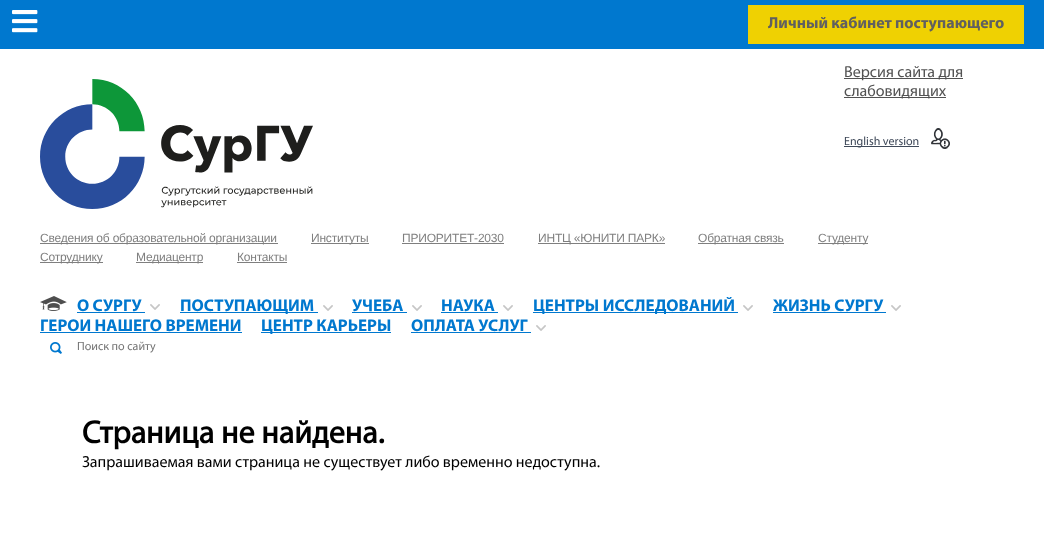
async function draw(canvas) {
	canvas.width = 1044;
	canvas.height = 535;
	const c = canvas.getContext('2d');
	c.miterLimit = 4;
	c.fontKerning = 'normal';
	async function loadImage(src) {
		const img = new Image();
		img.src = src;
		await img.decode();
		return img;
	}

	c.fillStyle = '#fff';
	c.fillRect(0, 0, 1044, 535);
	c.fillStyle = '#0078cf';
	c.fillRect(0, 0, 1044, 49);
	c.fillStyle = '#efd102';
	c.fillRect(748, 5, 276, 39);
	c.font = 'bold 16px Myriad';
	c.fillStyle = '#606060';
	c.fillText('Личный кабинет поступающего', 768, 28);
	c.drawImage(await loadImage('img1.png'), 12, 10, 26, 23);
	c.fillStyle = '#525252';
	c.fillRect(844, 78, 119, 1);
	c.font = '16px Myriad';
	c.fillText('Версия сайта для', 844, 77);
	c.fillRect(844, 97, 102, 1);
	c.fillText('слабовидящих', 844, 96);
	c.fillStyle = '#3f4959';
	c.fillRect(844, 146, 75, 1);
	c.font = '12px Myriad';
	c.fillText('English version', 844, 145);
	c.drawImage(await loadImage('img2.png'), 931, 128, 19, 21);
	c.drawImage(await loadImage('img3.png'), 40, 79, 273, 130);
	c.fillStyle = '#7f7f7f';
	c.fillRect(40, 243, 238, 1);
	c.letterSpacing = '-0.2px';
	c.font = '12px Liberation Sans';
	c.fillText('Сведения об образовательной организации', 40, 242);
	c.fillRect(311, 243, 58, 1);
	c.fillText('Институты', 311, 242);
	c.fillText('ПРИОРИТЕТ-2030', 402, 242);
	c.fillRect(402, 243, 102, 1);
	c.fillRect(538, 243, 127, 1);
	c.fillText('ИНТЦ «ЮНИТИ ПАРК»', 538, 242);
	c.fillRect(698, 243, 86, 1);
	c.fillText('Обратная связь', 698, 242);
	c.fillRect(818, 243, 50, 1);
	c.fillText('Студенту', 818, 242);
	c.fillRect(40, 262, 63, 1);
	c.fillText('Сотруднику', 40, 261);
	c.fillRect(136, 262, 67, 1);
	c.fillText('Медиацентр', 136, 261);
	c.fillText('Контакты', 237, 261);
	c.fillRect(237, 262, 50, 1);
	c.drawImage(await loadImage('img4.png'), 40, 296, 27, 15);
	c.letterSpacing = '0px';
	c.font = 'bold 17px Myriad';
	c.fillStyle = '#0078cf';
	c.fillText('О СУРГУ', 77, 311);
	c.fillRect(77, 312, 68, 1);
	c.drawImage(await loadImage('img5.png'), 150, 304, 10, 6);
	c.fillRect(180, 312, 138, 1);
	c.fillText('ПОСТУПАЮЩИМ', 180, 311);
	c.drawImage(await loadImage('img5.png'), 323, 305, 10, 6);
	c.fillText('УЧЕБА', 352, 311);
	c.fillRect(352, 312, 55, 1);
	c.drawImage(await loadImage('img5.png'), 412, 305, 10, 6);
	c.fillText('НАУКА', 441, 311);
	c.fillRect(441, 312, 57, 1);
	c.drawImage(await loadImage('img5.png'), 503, 305, 10, 6);
	c.fillRect(533, 312, 205, 1);
	c.fillText('ЦЕНТРЫ ИССЛЕДОВАНИЙ', 533, 311);
	c.drawImage(await loadImage('img5.png'), 743, 305, 10, 6);
	c.fillText('ЖИЗНЬ СУРГУ', 773, 311);
	c.fillRect(773, 312, 113, 1);
	c.drawImage(await loadImage('img5.png'), 891, 305, 10, 6);
	c.fillText('ГЕРОИ НАШЕГО ВРЕМЕНИ', 40, 331);
	c.fillRect(40, 332, 202, 1);
	c.fillRect(261, 332, 130, 1);
	c.fillText('ЦЕНТР КАРЬЕРЫ', 261, 331);
	c.fillText('ОПЛАТА УСЛУГ', 411, 331);
	c.fillRect(411, 332, 120, 1);
	c.drawImage(await loadImage('img5.png'), 536, 325, 10, 6);
	c.drawImage(await loadImage('img6.png'), 50, 342, 12, 12);
	c.font = '12px Myriad';
	c.fillStyle = '#757575';
	c.fillText('Поиск по сайту', 77, 350);
	c.font = 'bold 32px "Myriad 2"';
	c.fillStyle = '#000';
	c.fillText('Страница не найдена.', 82, 443);
	c.font = '16px Myriad';
	c.fillText('Запрашиваемая вами страница не существует либо временно недоступна.', 82, 467);
}

draw(document.querySelector('canvas'));
